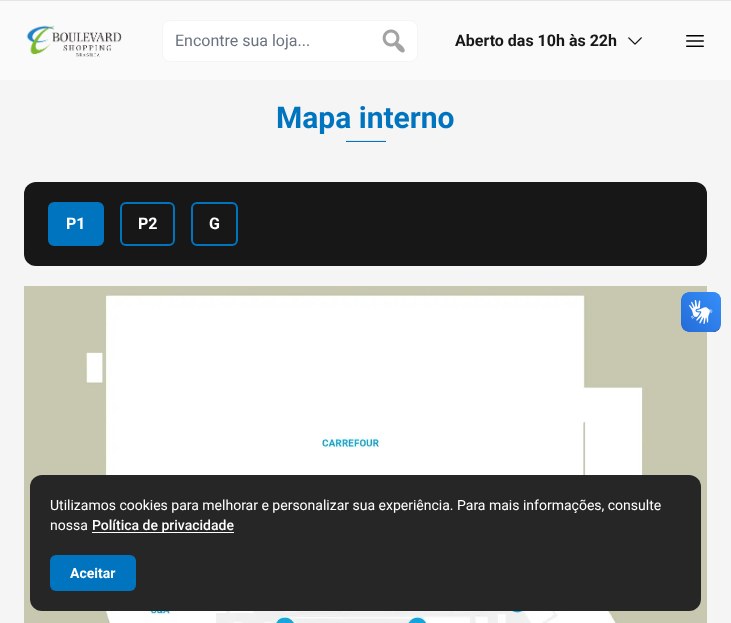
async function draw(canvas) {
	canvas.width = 731;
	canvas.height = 623;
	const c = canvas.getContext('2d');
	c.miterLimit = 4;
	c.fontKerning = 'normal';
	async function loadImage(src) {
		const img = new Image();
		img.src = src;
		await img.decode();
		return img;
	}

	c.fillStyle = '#f5f5f5';
	c.fillRect(0, 0, 731, 623);
	c.fillStyle = '#fafafa';
	c.fillRect(0, 1, 731, 79);
	c.fillStyle = '#e5e5e5';
	c.fillRect(0, 0, 731, 1);
	c.drawImage(await loadImage('img1.png'), 26, 25, 96, 32);
	c.fillStyle = '#fff';
	c.beginPath();
	c.roundRect(162.5, 20.5, 255, 41, 7.5);
	c.fill();
	c.strokeStyle = '#f5f5f5';
	c.stroke();
	c.font = '16px Roboto';
	c.fillStyle = '#6b7280';
	c.fillText('Encontre sua loja...', 175, 46);
	c.drawImage(await loadImage('img2.png'), 382, 29, 23, 24);
	c.font = 'bold 16px Roboto';
	c.fillStyle = '#171717';
	c.fillText('Aberto das 10h às 22h', 455, 46);
	c.drawImage(await loadImage('img3.png'), 628, 37, 14, 8);
	c.drawImage(await loadImage('img4.png'), 686, 35, 18, 12);
	c.font = 'bold 30px Roboto';
	c.fillStyle = '#0074be';
	c.fillText('Mapa interno', 276, 128);
	c.fillRect(346, 141, 40, 1);
	c.fillStyle = '#e5e7eb';
	c.fillRect(346, 140, 40, 1);
	c.fillStyle = '#171717';
	c.beginPath();
	c.roundRect(24, 182, 683, 84, 12);
	c.fill();
	c.fillStyle = '#0074be';
	c.beginPath();
	c.roundRect(49, 203, 54, 42, 5);
	c.fill();
	c.strokeStyle = '#0074be';
	c.lineWidth = 2;
	c.stroke();
	c.font = 'bold 16px Roboto';
	c.fillStyle = '#fff';
	c.fillText('P1', 66, 229);
	c.beginPath();
	c.roundRect(121, 203, 53, 42, 5);
	c.stroke();
	c.fillText('P2', 138, 229);
	c.beginPath();
	c.roundRect(192, 203, 45, 42, 5);
	c.stroke();
	c.fillText('G', 209, 229);
	c.drawImage(await loadImage('img5.png'), 24, 286, 683, 337);
	c.drawImage(await loadImage('img6.png'), 681, 292, 40, 40);
	c.drawImage(await loadImage('img7.png'), 681, 292, 40, 40);
	c.fillStyle = '#262626';
	c.beginPath();
	c.roundRect(30, 475, 671, 136, 12);
	c.fill();
	c.font = '14px Roboto';
	c.fillStyle = '#fff';
	c.fillText('Utilizamos cookies para melhorar e personalizar sua experiência. Para mais informações, consulte', 50, 510);
	c.fillText('nossa', 50, 530);
	c.fillRect(92, 532, 142, 1);
	c.font = '500 14px Roboto';
	c.fillText('Política de privacidade', 92, 530);
	c.fillStyle = '#0074be';
	c.beginPath();
	c.roundRect(50, 555, 86, 36, 6);
	c.fill();
	c.font = 'bold 14px Roboto';
	c.fillStyle = '#fff';
	c.fillText('Aceitar', 70, 578);
}

draw(document.querySelector('canvas'));
